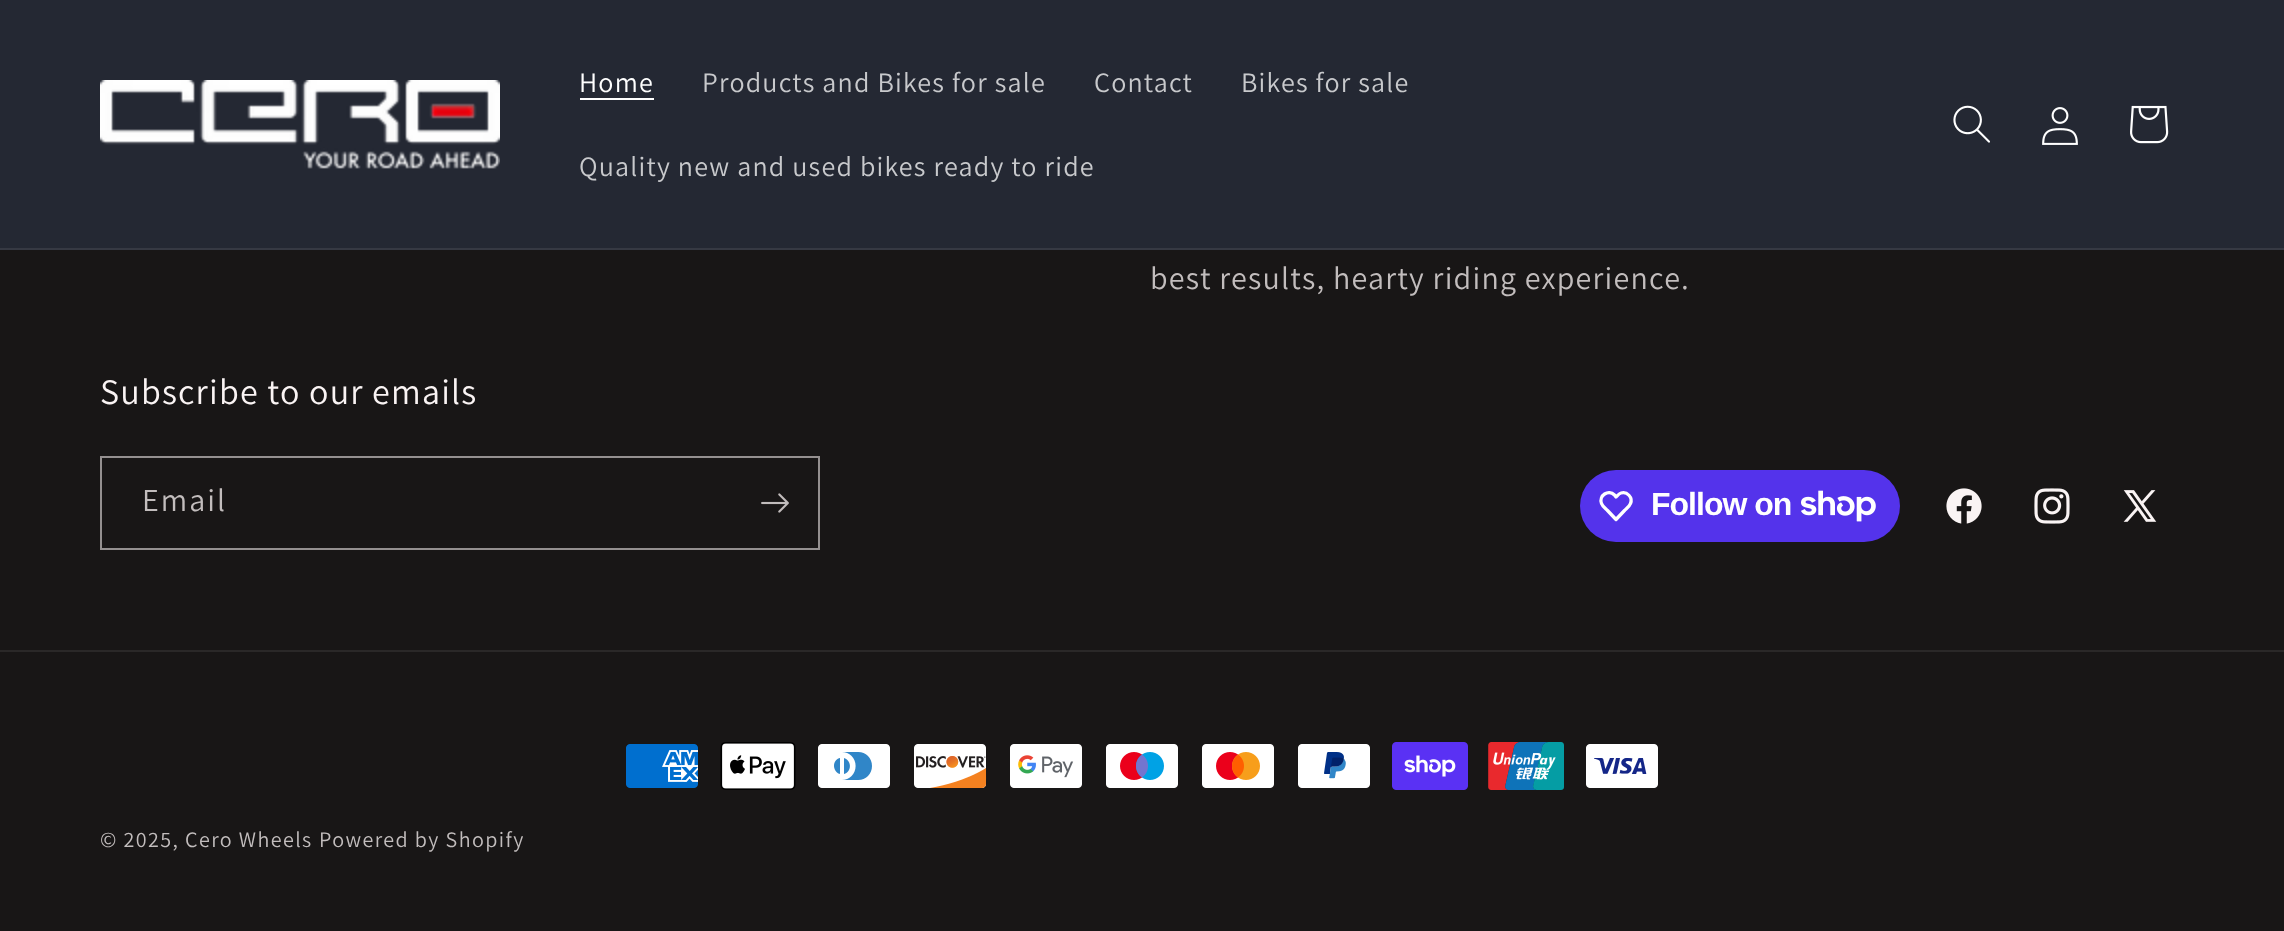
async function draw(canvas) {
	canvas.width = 2284;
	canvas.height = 931;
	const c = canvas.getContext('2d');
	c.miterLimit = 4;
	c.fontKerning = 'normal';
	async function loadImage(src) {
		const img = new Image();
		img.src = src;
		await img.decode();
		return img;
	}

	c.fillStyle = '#181616';
	c.fillRect(0, 0, 2284, 931);
	c.fillStyle = '#242833';
	c.fillRect(0, 0, 2284, 248);
	c.fillStyle = '#363943';
	c.fillRect(0, 248, 2284, 2);
	c.drawImage(await loadImage('img1.png'), 100, 80, 400, 89);
	c.letterSpacing = '1.2px';
	c.font = '28px Assistant';
	c.fillStyle = '#fff';
	c.fillText('Home', 579, 92);
	c.fillRect(580, 98, 74, 2);
	c.fillStyle = '#c8c9cc';
	for (const [text, x, y] of [
		['Products and Bikes for sale', 702, 92],
		['Contact', 1094, 92],
		['Bikes for sale', 1241, 92],
		['Quality new and used bikes ready to ride', 579, 176],
	]) {
		c.fillText(text, x, y);
	}
	c.drawImage(await loadImage('img2.png'), 1953, 105, 37, 38);
	c.drawImage(await loadImage('img3.png'), 2042, 107, 36, 38);
	c.drawImage(await loadImage('img4.png'), 2130, 105, 39, 39);
	c.font = '32px Assistant';
	c.fillStyle = '#c2bdbd';
	c.fillText('best results, hearty riding experience.', 1150, 289);
	c.font = '36px Assistant';
	c.fillStyle = '#faf4f4';
	c.fillText('Subscribe to our emails', 100, 404);
	c.strokeStyle = '#949090';
	c.lineWidth = 2;
	c.strokeRect(101, 457, 718, 92);
	c.letterSpacing = '2px';
	c.font = '32px Assistant';
	c.fillStyle = '#c2bdbd';
	c.fillText('Email', 142, 511);
	c.drawImage(await loadImage('img5.png'), 761, 493, 28, 20);
	c.fillStyle = '#5433eb';
	c.beginPath();
	c.roundRect(1580, 470, 320, 72, 36);
	c.fill();
	c.beginPath();
	c.moveTo(1614.5, 495);
	c.lineTo(1616, 497);
	c.bezierCurveTo(1617.5, 495.5, 1619, 493.5, 1621, 493);
	c.bezierCurveTo(1627, 491, 1633, 497.5, 1630.5, 503.5);
	c.bezierCurveTo(1629.5, 506.5, 1626.5, 508.5, 1624.5, 510.5);
	c.lineTo(1616, 519.5);
	c.lineTo(1607.5, 510.5);
	c.bezierCurveTo(1605.5, 508.5, 1602.5, 506.5, 1601.5, 503.5);
	c.bezierCurveTo(1598.5, 495.5, 1608.5, 489, 1614.5, 495);
	c.closePath();
	c.strokeStyle = '#fff';
	c.lineWidth = 3.3;
	c.lineJoin = 'round';
	c.stroke();
	c.letterSpacing = '-1px';
	c.font = 'bold 32px Liberation Sans';
	c.fillStyle = '#fff';
	c.fillText('Follow on', 1651, 515);
	c.drawImage(await loadImage('img6.png'), 1801, 490, 75, 32);
	c.drawImage(await loadImage('img7.png'), 1946, 488, 36, 36);
	c.drawImage(await loadImage('img8.png'), 2034, 488, 36, 36);
	c.drawImage(await loadImage('img9.png'), 2123, 490, 34, 32);
	c.fillStyle = '#2a2828';
	c.fillRect(0, 650, 2284, 2);
	c.drawImage(await loadImage('img10.png'), 626, 744, 72, 44);
	c.drawImage(await loadImage('img11.png'), 720, 742, 76, 48);
	c.drawImage(await loadImage('img12.png'), 818, 744, 72, 44);
	c.drawImage(await loadImage('img13.png'), 914, 744, 73, 44);
	c.drawImage(await loadImage('img14.png'), 1010, 744, 72, 44);
	c.drawImage(await loadImage('img15.png'), 1106, 744, 72, 44);
	c.drawImage(await loadImage('img16.png'), 1202, 744, 72, 44);
	c.drawImage(await loadImage('img17.png'), 1298, 744, 72, 44);
	c.drawImage(await loadImage('img18.png'), 1392, 742, 76, 48);
	c.drawImage(await loadImage('img19.png'), 1488, 742, 76, 48);
	c.drawImage(await loadImage('img20.png'), 1586, 744, 72, 44);
	c.letterSpacing = '1.4px';
	c.font = '22px Assistant';
	c.fillStyle = '#c2bdbd';
	c.fillText('© 2025, Cero Wheels', 100, 847);
	c.fillText('Powered by Shopify', 319, 847);
}

draw(document.querySelector('canvas'));
